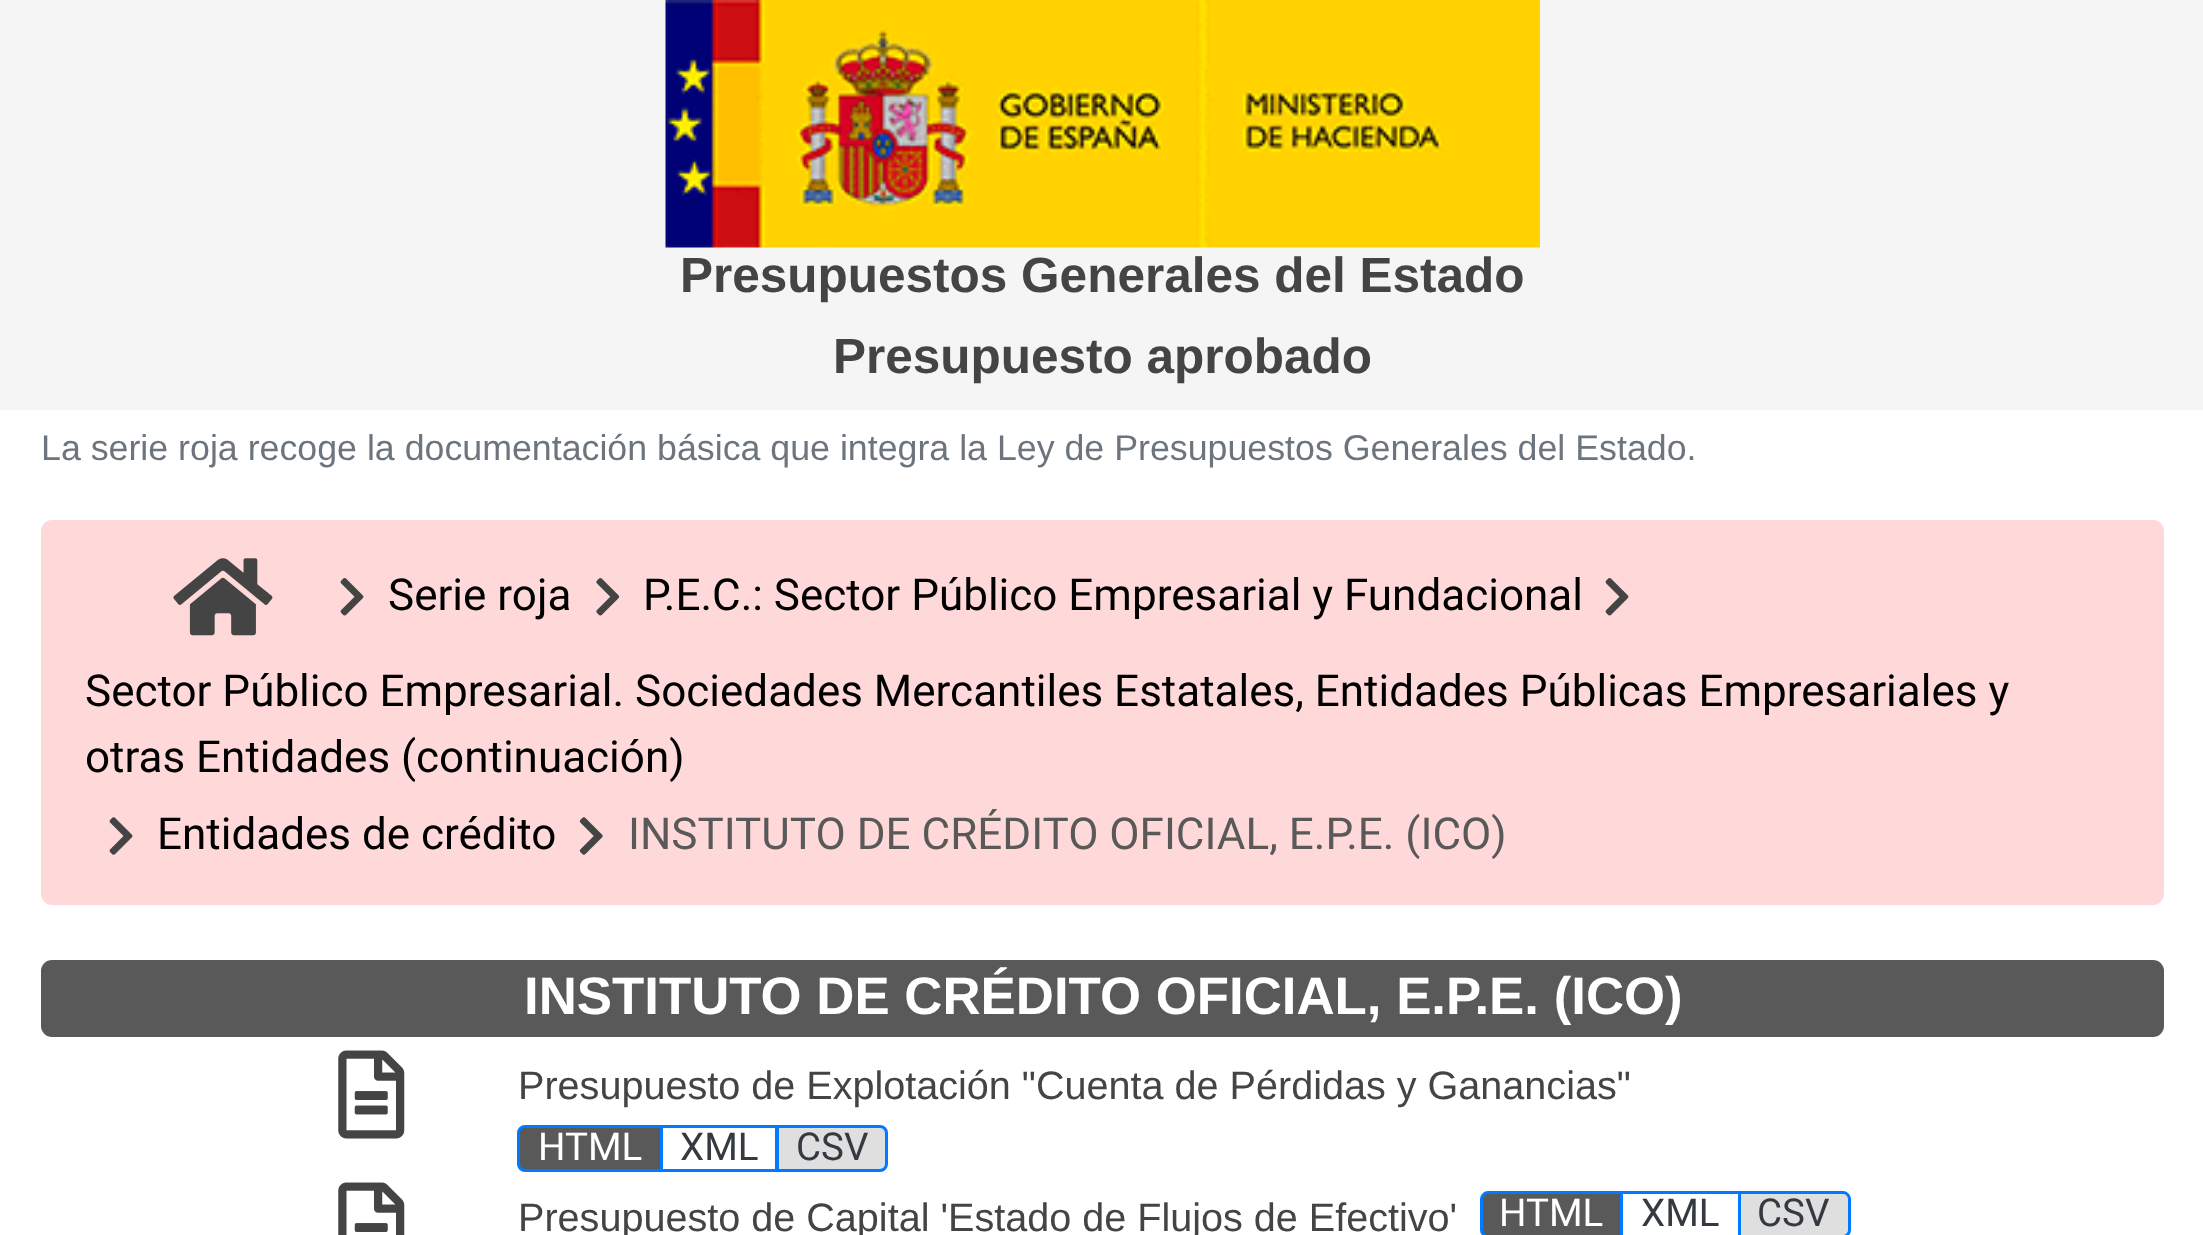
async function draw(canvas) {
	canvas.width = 2203;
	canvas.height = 1235;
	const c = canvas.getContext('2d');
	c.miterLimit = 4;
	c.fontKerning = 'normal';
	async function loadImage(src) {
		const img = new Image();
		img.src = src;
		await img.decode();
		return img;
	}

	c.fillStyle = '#fff';
	c.fillRect(0, 0, 2203, 1235);
	c.fillStyle = '#f5f5f5';
	c.fillRect(0, 0, 2203, 410);
	c.drawImage(await loadImage('img1.png'), 665, 0, 875, 248);
	c.font = 'bold 49.5px Liberation Sans';
	c.fillStyle = '#444';
	c.fillText('Presupuestos Generales del Estado', 680, 292);
	c.fillText('Presupuesto aprobado', 833, 373);
	c.font = '35.75px Liberation Sans';
	c.fillStyle = '#6c757d';
	c.fillText('La serie roja recoge la documentación básica que integra la Ley de Presupuestos Generales del Estado.', 41, 460);
	c.fillStyle = '#ffd9d9';
	c.beginPath();
	c.roundRect(41, 520, 2123, 385, 11);
	c.fill();
	c.drawImage(await loadImage('img2.png'), 173, 558, 100, 78);
	c.drawImage(await loadImage('img3.png'), 340, 578, 24, 38);
	c.font = '44px Roboto';
	c.fillStyle = '#000';
	c.fillText('Serie roja', 388, 610);
	c.drawImage(await loadImage('img4.png'), 596, 578, 24, 38);
	c.fillText('P.E.C.: Sector Público Empresarial y Fundacional', 643, 610);
	c.drawImage(await loadImage('img3.png'), 1605, 578, 24, 38);
	c.fillText('Sector Público Empresarial. Sociedades Mercantiles Estatales, Entidades Públicas Empresariales y', 85, 706);
	c.fillText('otras Entidades (continuación)', 85, 772);
	c.drawImage(await loadImage('img5.png'), 109, 817, 24, 38);
	c.fillText('Entidades de crédito', 157, 849);
	c.drawImage(await loadImage('img6.png'), 579, 817, 24, 38);
	c.fillStyle = '#595959';
	c.fillText('INSTITUTO DE CRÉDITO OFICIAL, E.P.E. (ICO)', 628, 849);
	c.beginPath();
	c.roundRect(41, 960, 2123, 77, 11);
	c.fill();
	c.font = 'bold 52.8px Liberation Sans';
	c.fillStyle = '#fff';
	c.fillText('INSTITUTO DE CRÉDITO OFICIAL, E.P.E. (ICO)', 524, 1014);
	c.drawImage(await loadImage('img7.png'), 338, 1050, 67, 89);
	c.font = '39.6px Liberation Sans';
	c.fillStyle = '#444';
	c.fillText('Presupuesto de Explotación "Cuenta de Pérdidas y Ganancias"', 518, 1099);
	c.fillStyle = '#595959';
	c.beginPath();
	c.roundRect(518.5, 1126.5, 143, 44, [6.5, 0, 0, 6.5]);
	c.fill();
	c.strokeStyle = '#007bff';
	c.lineWidth = 3;
	c.stroke();
	c.font = '38.5px Roboto';
	c.fillStyle = '#fff';
	c.fillText('HTML', 538, 1160);
	c.strokeRect(661.5, 1126.5, 115, 44);
	c.fillStyle = '#343a40';
	c.fillText('XML', 680, 1160);
	c.fillStyle = '#dfdfdf';
	c.beginPath();
	c.roundRect(777.5, 1126.5, 109, 44, [0, 6.5, 6.5, 0]);
	c.fill();
	c.stroke();
	c.fillStyle = '#343a40';
	c.fillText('CSV', 796, 1160);
	c.drawImage(await loadImage('img8.png'), 338, 1182, 67, 53);
	c.font = '39.6px Liberation Sans';
	c.fillStyle = '#444';
	c.fillText('Presupuesto de Capital \'Estado de Flujos de Efectivo\'', 518, 1231);
	c.fillStyle = '#595959';
	c.beginPath();
	c.moveTo(1488, 1192.5);
	c.lineTo(1621.5, 1192.5);
	c.lineTo(1621.5, 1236.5);
	c.lineTo(1488, 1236.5);
	c.bezierCurveTo(1484.5, 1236.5, 1481.5, 1233.5, 1481.5, 1230);
	c.lineTo(1481.5, 1199);
	c.bezierCurveTo(1481.5, 1195.5, 1484.5, 1192.5, 1488, 1192.5);
	c.closePath();
	c.fill();
	c.stroke();
	c.font = '38.5px Roboto';
	c.fillStyle = '#fff';
	c.fillText('HTML', 1499, 1226);
	c.strokeRect(1621.5, 1192.5, 118, 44);
	c.fillStyle = '#343a40';
	c.fillText('XML', 1641, 1226);
	c.fillStyle = '#dfdfdf';
	c.beginPath();
	c.moveTo(1739.5, 1192.5);
	c.lineTo(1843, 1192.5);
	c.bezierCurveTo(1846.5, 1192.5, 1849.5, 1195.5, 1849.5, 1199);
	c.lineTo(1849.5, 1230);
	c.bezierCurveTo(1849.5, 1233.5, 1846.5, 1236.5, 1843, 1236.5);
	c.lineTo(1739.5, 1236.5);
	c.closePath();
	c.fill();
	c.stroke();
	c.fillStyle = '#343a40';
	c.fillText('CSV', 1757, 1226);
}

draw(document.querySelector('canvas'));
